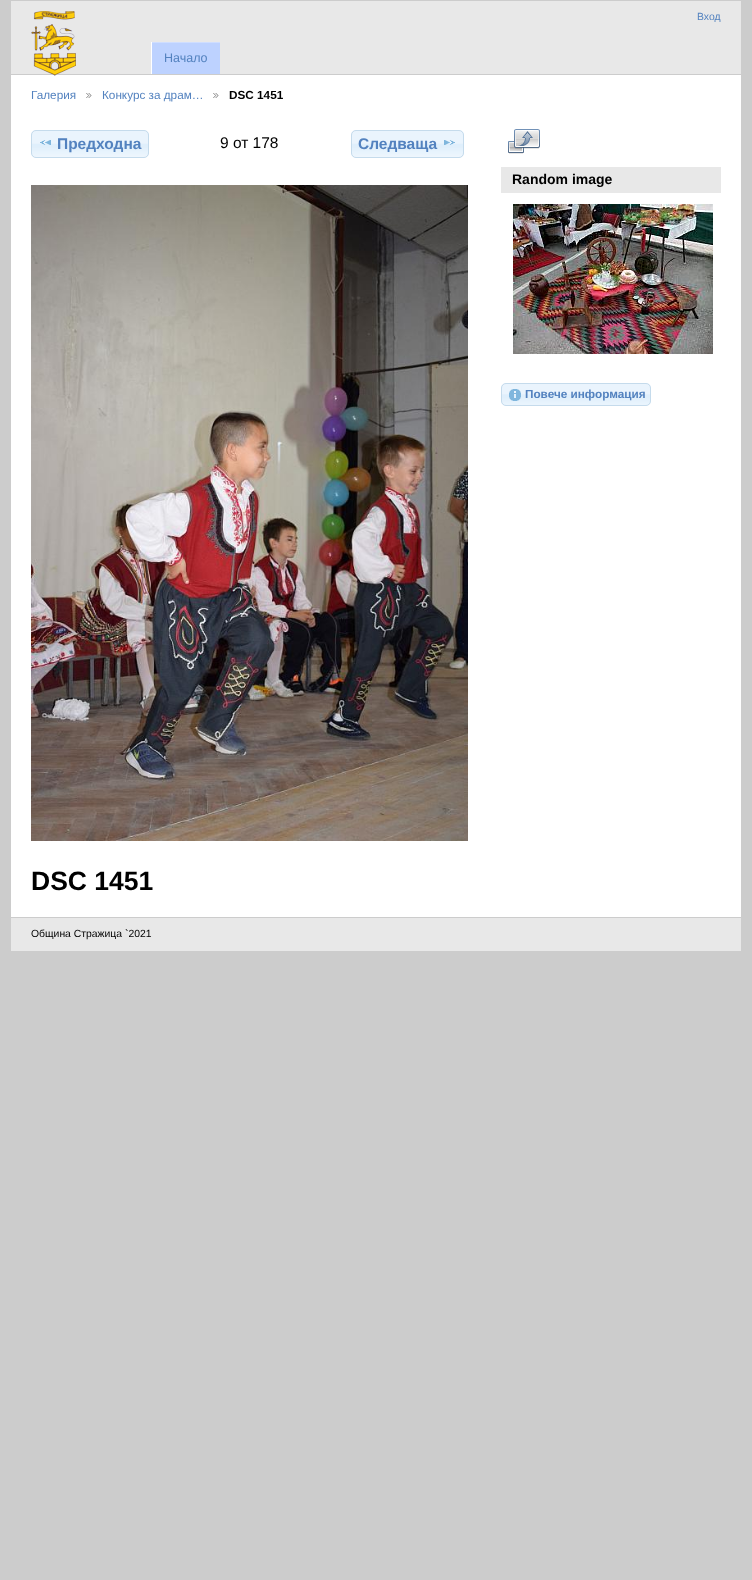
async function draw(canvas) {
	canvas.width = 752;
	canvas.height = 1580;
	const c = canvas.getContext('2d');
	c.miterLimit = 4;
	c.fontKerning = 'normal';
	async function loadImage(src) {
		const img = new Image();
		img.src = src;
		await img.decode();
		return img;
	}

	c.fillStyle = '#ccc';
	c.fillRect(0, 0, 752, 1580);
	c.fillStyle = '#fff';
	c.fillRect(11, 75, 730, 842);
	c.fillStyle = '#e8e8e8';
	c.fillRect(11, 1, 730, 73);
	c.drawImage(await loadImage('img1.png'), 31, 11, 45, 65);
	c.font = '10.4px Liberation Sans';
	c.fillStyle = '#5382bf';
	c.fillText('Вход', 697, 20);
	for (const [x, y, w, h, color] of [
		[152, 43, 68, 31, '#bdd2ff'],
		[151, 42, 69, 1, '#cfdeff'],
		[151, 42, 1, 32, '#fff'],
	]) {
		c.fillStyle = color;
		c.fillRect(x, y, w, h);
	}
	c.font = '12.5px Liberation Sans';
	c.fillStyle = '#5382bf';
	c.fillText('Начало', 164, 62);
	c.font = '11.75px Liberation Sans';
	c.fillText('Галерия', 31, 99);
	c.drawImage(await loadImage('img2.png'), 86, 93, 6, 5);
	c.fillText('Конкурс за драм…', 102, 99);
	c.drawImage(await loadImage('img2.png'), 213, 93, 6, 5);
	c.font = 'bold 11.75px Liberation Sans';
	c.fillStyle = '#000';
	c.fillText('DSC 1451', 229, 99);
	c.drawImage(await loadImage('img3.png'), 31, 130, 118, 28);
	c.beginPath();
	c.roundRect(31.5, 130.5, 117, 27, 4.5);
	c.strokeStyle = '#c5dbec';
	c.stroke();
	c.drawImage(await loadImage('img4.png'), 40, 140, 11, 5);
	c.font = 'bold 15.5px Liberation Sans';
	c.fillStyle = '#5382bf';
	c.fillText('Предходна', 57, 149);
	c.font = '15.5px Liberation Sans';
	c.fillStyle = '#000';
	c.fillText('9 от 178', 220, 148);
	c.drawImage(await loadImage('img5.png'), 351, 130, 113, 28);
	c.beginPath();
	c.roundRect(351.5, 130.5, 112, 27, 4.5);
	c.stroke();
	c.font = 'bold 15.5px Liberation Sans';
	c.fillStyle = '#5382bf';
	c.fillText('Следваща', 358, 149);
	c.drawImage(await loadImage('img6.png'), 444, 140, 11, 5);
	c.drawImage(await loadImage('img7.png'), 31, 185, 437, 656);
	c.font = 'bold 26.5px Liberation Sans';
	c.fillStyle = '#000';
	c.fillText('DSC 1451', 31, 890);
	c.drawImage(await loadImage('img8.png'), 508, 129, 32, 25);
	c.fillStyle = '#e8e8e8';
	c.fillRect(501, 167, 220, 26);
	c.font = 'bold 14px Liberation Sans';
	c.fillStyle = '#000';
	c.fillText('Random image', 512, 184);
	c.drawImage(await loadImage('img9.png'), 513, 204, 200, 150);
	c.drawImage(await loadImage('img10.png'), 501, 383, 150, 23);
	c.beginPath();
	c.roundRect(501.5, 383.5, 149, 22, 4.5);
	c.stroke();
	c.drawImage(await loadImage('img11.png'), 509, 389, 12, 12);
	c.font = 'bold 11.75px Liberation Sans';
	c.fillStyle = '#5382bf';
	c.fillText('Повече информация', 525, 398);
	c.fillStyle = '#e8e8e8';
	c.fillRect(11, 918, 730, 33);
	c.font = '10.4px Liberation Sans';
	c.fillStyle = '#000';
	c.fillText('Община Стражица `2021', 31, 937);
}

draw(document.querySelector('canvas'));
